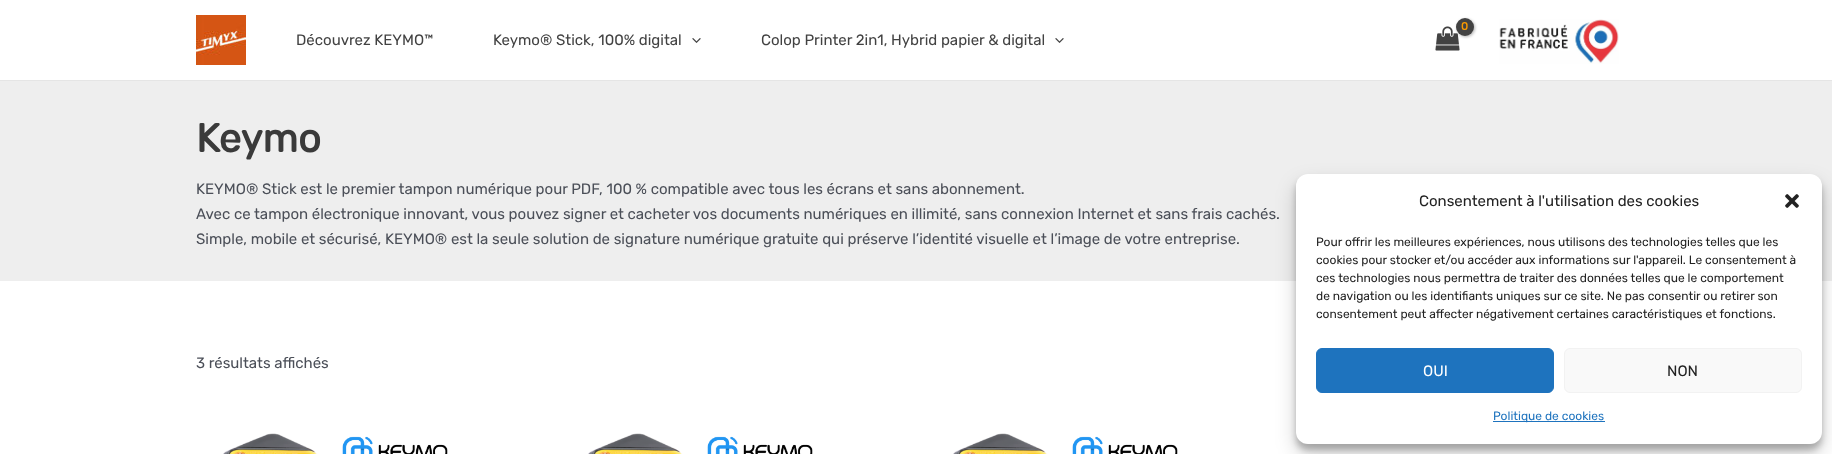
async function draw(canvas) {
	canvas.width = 1832;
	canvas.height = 454;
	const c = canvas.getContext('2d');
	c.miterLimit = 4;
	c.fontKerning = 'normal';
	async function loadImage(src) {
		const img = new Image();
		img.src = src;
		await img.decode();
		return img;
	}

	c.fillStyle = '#fff';
	c.fillRect(0, 0, 1832, 454);
	c.fillStyle = '#e5e5e5';
	c.fillRect(0, 80, 1832, 1);
	c.drawImage(await loadImage('img1.png'), 1435, 26, 25, 25);
	c.fillStyle = '#0000004d';
	c.filter = 'blur(1.5px)';
	c.beginPath();
	c.roundRect(1457, 19, 18, 18, 9);
	c.fill();
	c.filter = 'none';
	c.fillStyle = '#424242';
	c.beginPath();
	c.arc(1465, 27, 9, 0, 2 * Math.PI);
	c.fill();
	c.font = 'bold 11px Rubik';
	c.fillStyle = '#fb9b00';
	c.fillText('0', 1461, 30);
	c.drawImage(await loadImage('img2.png'), 1499, 19, 120, 45);
	c.drawImage(await loadImage('img3.png'), 196, 15, 50, 50);
	c.font = '300 15px Rubik';
	c.fillStyle = '#424242';
	c.fillText('Découvrez KEYMO™', 296, 45);
	c.fillText('Keymo® Stick, 100% digital', 493, 45);
	c.drawImage(await loadImage('img4.png'), 692, 38, 9, 5);
	c.fillText('Colop Printer 2in1, Hybrid papier & digital', 761, 45);
	c.drawImage(await loadImage('img4.png'), 1055, 38, 9, 5);
	c.fillStyle = '#eee';
	c.fillRect(0, 81, 1832, 200);
	c.font = 'bold 40px Rubik';
	c.fillStyle = '#3a3a3a';
	c.fillText('Keymo', 196, 152);
	c.font = '300 15px Rubik';
	c.fillStyle = '#4b4f58';
	for (const [text, x, y] of [
		['KEYMO® Stick est le premier tampon numérique pour PDF, 100 % compatible avec tous les écrans et sans abonnement.', 196, 194],
		['Avec ce tampon électronique innovant, vous pouvez signer et cacheter vos documents numériques en illimité, sans connexion Internet et sans frais cachés.', 196, 219],
		['Simple, mobile et sécurisé, KEYMO® est la seule solution de signature numérique gratuite qui préserve l’identité visuelle et l’image de votre entreprise.', 196, 244],
		['3 résultats affichés', 196, 368],
	]) {
		c.fillText(text, x, y);
	}
	c.drawImage(await loadImage('img5.png'), 223, 433, 225, 21);
	c.drawImage(await loadImage('img6.png'), 588, 433, 225, 21);
	c.drawImage(await loadImage('img7.png'), 953, 433, 225, 21);
	c.fillStyle = '#0000003b';
	c.filter = 'blur(3px)';
	c.beginPath();
	c.roundRect(1296, 180, 526, 270, 12);
	c.fill();
	c.filter = 'none';
	c.fillStyle = '#00000030';
	c.filter = 'blur(10px)';
	c.beginPath();
	c.roundRect(1296, 184, 526, 270, 12);
	c.fill();
	c.filter = 'none';
	c.fillStyle = '#fff';
	c.beginPath();
	c.roundRect(1296, 174, 526, 270, 12);
	c.fill();
	c.fillStyle = '#222';
	c.fillText('Consentement à l\'utilisation des cookies', 1419, 206);
	c.drawImage(await loadImage('img8.png'), 1785, 194, 14, 14);
	c.font = '300 12px Rubik';
	for (const [text, x, y] of [
		['Pour offrir les meilleures expériences, nous utilisons des technologies telles que les', 1316, 246],
		['cookies pour stocker et/ou accéder aux informations sur l\'appareil. Le consentement à', 1316, 264],
		['ces technologies nous permettra de traiter des données telles que le comportement', 1316, 282],
		['de navigation ou les identifiants uniques sur ce site. Ne pas consentir ou retirer son', 1316, 300],
		['consentement peut affecter négativement certaines caractéristiques et fonctions.', 1316, 318],
	]) {
		c.fillText(text, x, y);
	}
	c.fillStyle = '#1e73be';
	c.beginPath();
	c.roundRect(1316.5, 348.5, 237, 44, 5.5);
	c.fill();
	c.strokeStyle = '#1e73be';
	c.stroke();
	c.font = '300 15px Rubik';
	c.fillStyle = '#fff';
	c.fillText('OUI', 1423, 376);
	c.fillStyle = '#f9f9f9';
	c.beginPath();
	c.roundRect(1564.5, 348.5, 237, 44, 5.5);
	c.fill();
	c.strokeStyle = '#f2f2f2';
	c.stroke();
	c.fillStyle = '#222';
	c.fillText('NON', 1667, 376);
	c.fillStyle = '#1e73be';
	c.fillRect(1493, 421, 112, 1);
	c.font = '300 12px Rubik';
	c.fillText('Politique de cookies', 1493, 420);
}

draw(document.querySelector('canvas'));
